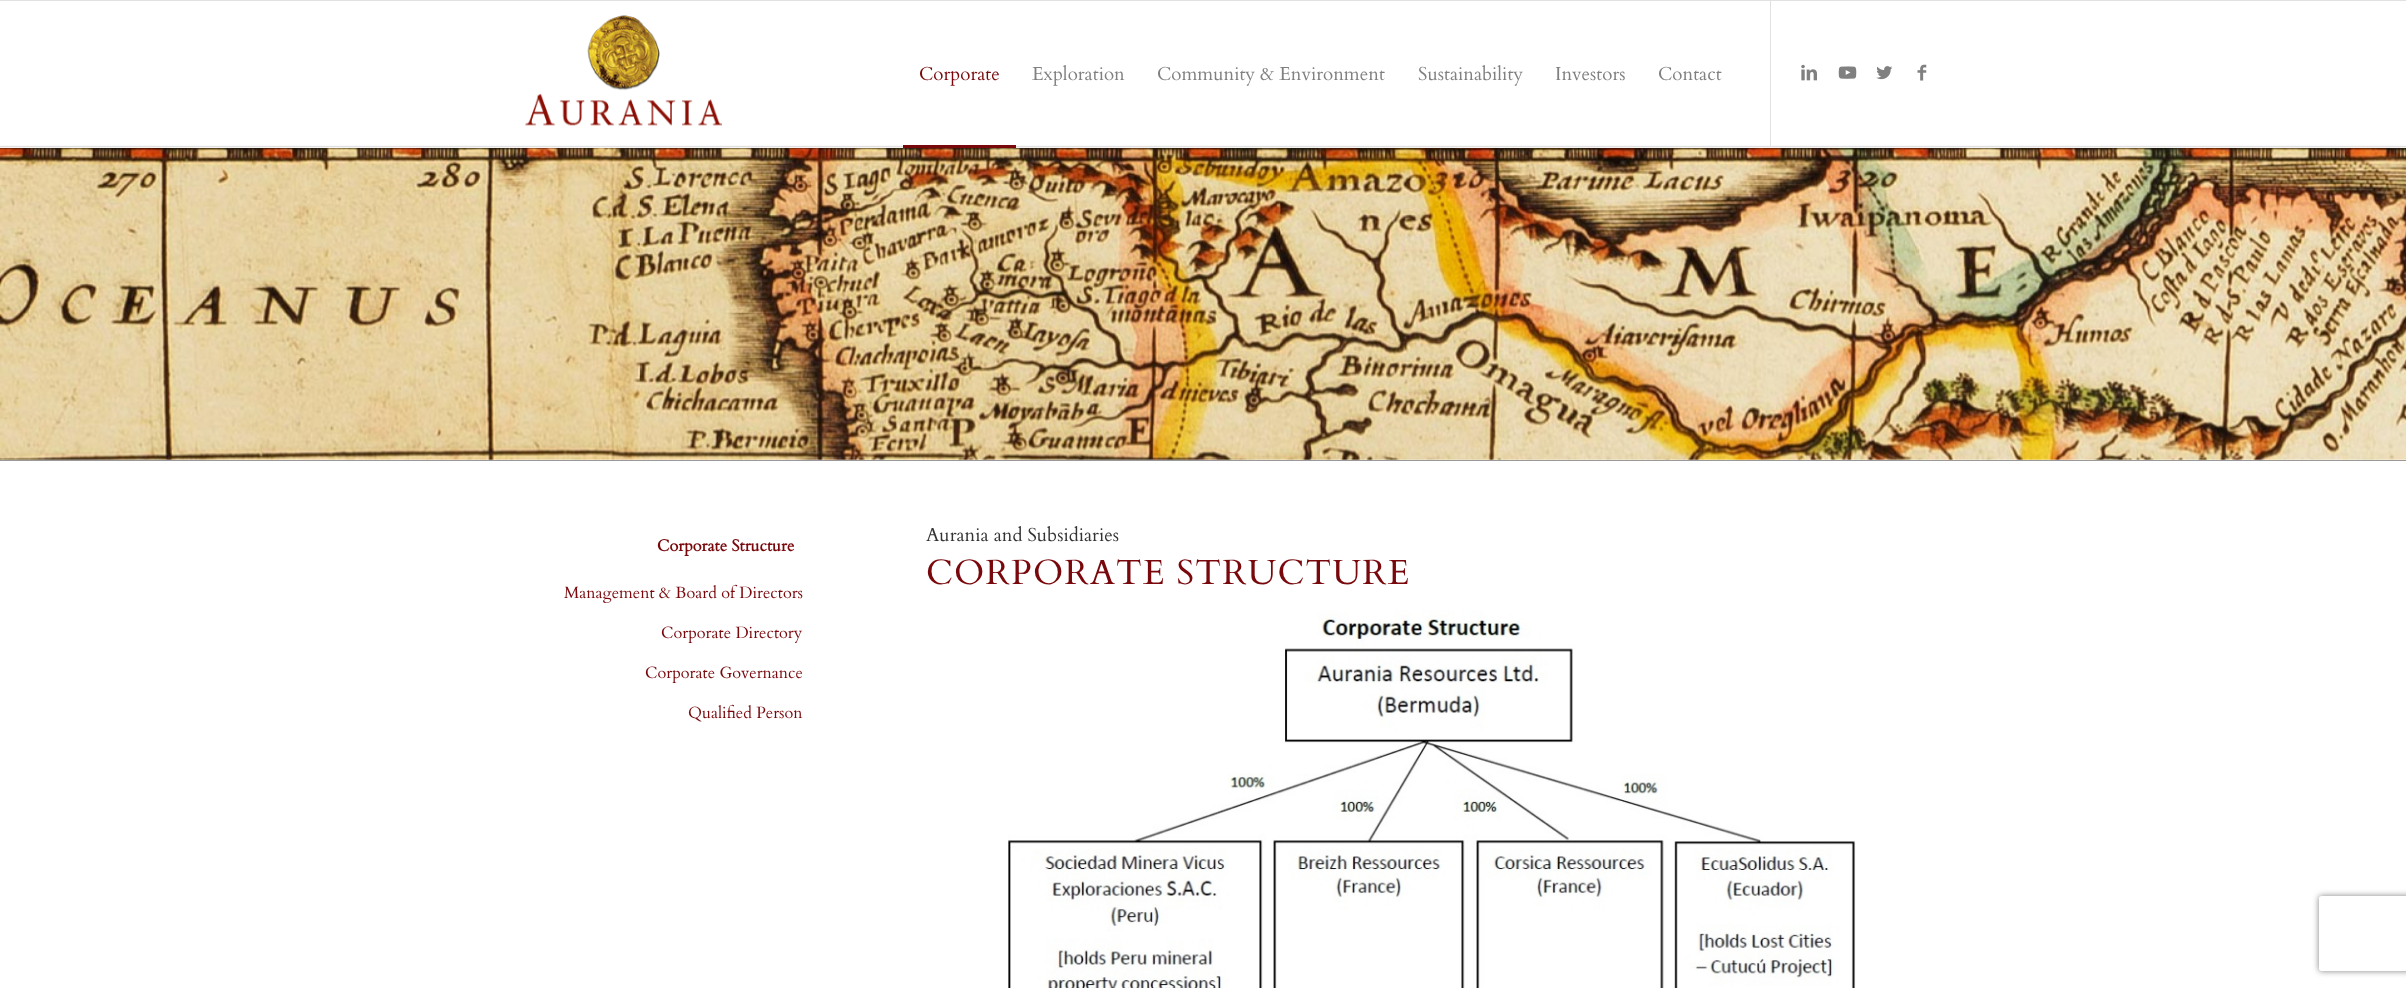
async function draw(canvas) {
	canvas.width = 2406;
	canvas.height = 988;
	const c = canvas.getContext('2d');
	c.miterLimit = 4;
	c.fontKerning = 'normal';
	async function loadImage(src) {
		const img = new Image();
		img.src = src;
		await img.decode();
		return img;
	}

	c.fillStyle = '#fff';
	c.fillRect(0, 0, 2406, 988);
	c.fillStyle = '#e1e1e1';
	c.fillRect(0, 0, 2406, 1);
	c.fillStyle = '#999';
	c.fillRect(0, 145, 2406, 1);
	c.drawImage(await loadImage('img6.png'), 0, 147, 2406, 313);
	c.fillStyle = '#fffffff2';
	c.fillRect(0, 145, 2406, 3);
	c.fillStyle = '#e1e1e1';
	c.fillRect(0, 146, 2406, 1);
	c.drawImage(await loadImage('img1.png'), 525, 15, 197, 111);
	c.fillRect(1770, 1, 1, 145);
	c.font = '18.75px Cardo';
	c.fillStyle = '#78080c';
	c.fillText('Corporate', 919, 80);
	c.fillRect(903, 145, 113, 3);
	c.fillStyle = '#808080';
	for (const [text, x, y] of [
		['Exploration', 1032, 80],
		['Community & Environment', 1157, 80],
		['Sustainability', 1418, 80],
		['Investors', 1555, 80],
		['Contact', 1658, 80],
	]) {
		c.fillText(text, x, y);
	}
	c.drawImage(await loadImage('img2.png'), 1801, 64, 16, 17);
	c.drawImage(await loadImage('img3.png'), 1838, 66, 19, 13);
	c.drawImage(await loadImage('img4.png'), 1876, 66, 17, 14);
	c.drawImage(await loadImage('img5.png'), 1917, 64, 10, 17);
	c.fillStyle = '#999';
	c.fillRect(0, 460, 2406, 1);
	c.save();
	c.beginPath();
	c.rect(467, 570, 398, 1);
	c.clip();
	c.fillStyle = '#00000033';
	c.filter = 'blur(0.5px)';
	c.beginPath();
	c.rect(466, 524, 402, 46);
	c.fill();
	c.filter = 'none';
	c.restore();
	c.fillStyle = '#fff';
	c.fillRect(466, 524, 1, 46);
	c.font = 'bold 16.25px Cardo';
	c.fillStyle = '#78080c';
	c.fillText('Corporate Structure', 657, 551);
	c.font = '16.25px Cardo';
	for (const [text, x, y] of [
		['Management & Board of Directors', 564, 598],
		['Corporate Directory', 661, 638],
		['Corporate Governance', 645, 678],
		['Qualified Person', 688, 718],
	]) {
		c.fillText(text, x, y);
	}
	c.font = '18.75px Cardo';
	c.fillStyle = '#333';
	c.fillText('Aurania and Subsidiaries', 926, 541);
	c.letterSpacing = '1.25px';
	c.font = '35px Cardo';
	c.fillStyle = '#78080c';
	c.fillText('CORPORATE STRUCTURE', 926, 584);
	c.drawImage(await loadImage('img7.png'), 1008, 610, 848, 378);
	c.save();
	c.beginPath();
	c.moveTo(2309, 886);
	c.lineTo(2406, 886);
	c.lineTo(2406, 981);
	c.lineTo(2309, 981);
	c.closePath();
	c.moveTo(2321.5, 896);
	c.lineTo(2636.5, 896);
	c.bezierCurveTo(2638, 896, 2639, 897, 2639, 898.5);
	c.lineTo(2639, 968.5);
	c.bezierCurveTo(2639, 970, 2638, 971, 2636.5, 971);
	c.lineTo(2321.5, 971);
	c.bezierCurveTo(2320, 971, 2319, 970, 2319, 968.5);
	c.lineTo(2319, 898.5);
	c.bezierCurveTo(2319, 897, 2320, 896, 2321.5, 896);
	c.closePath();
	c.clip('evenodd');
	c.fillStyle = '#808080';
	c.filter = 'blur(3px)';
	c.beginPath();
	c.roundRect(2319, 896, 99, 75, 2.5);
	c.fill();
	c.filter = 'none';
	c.restore();
}

draw(document.querySelector('canvas'));
